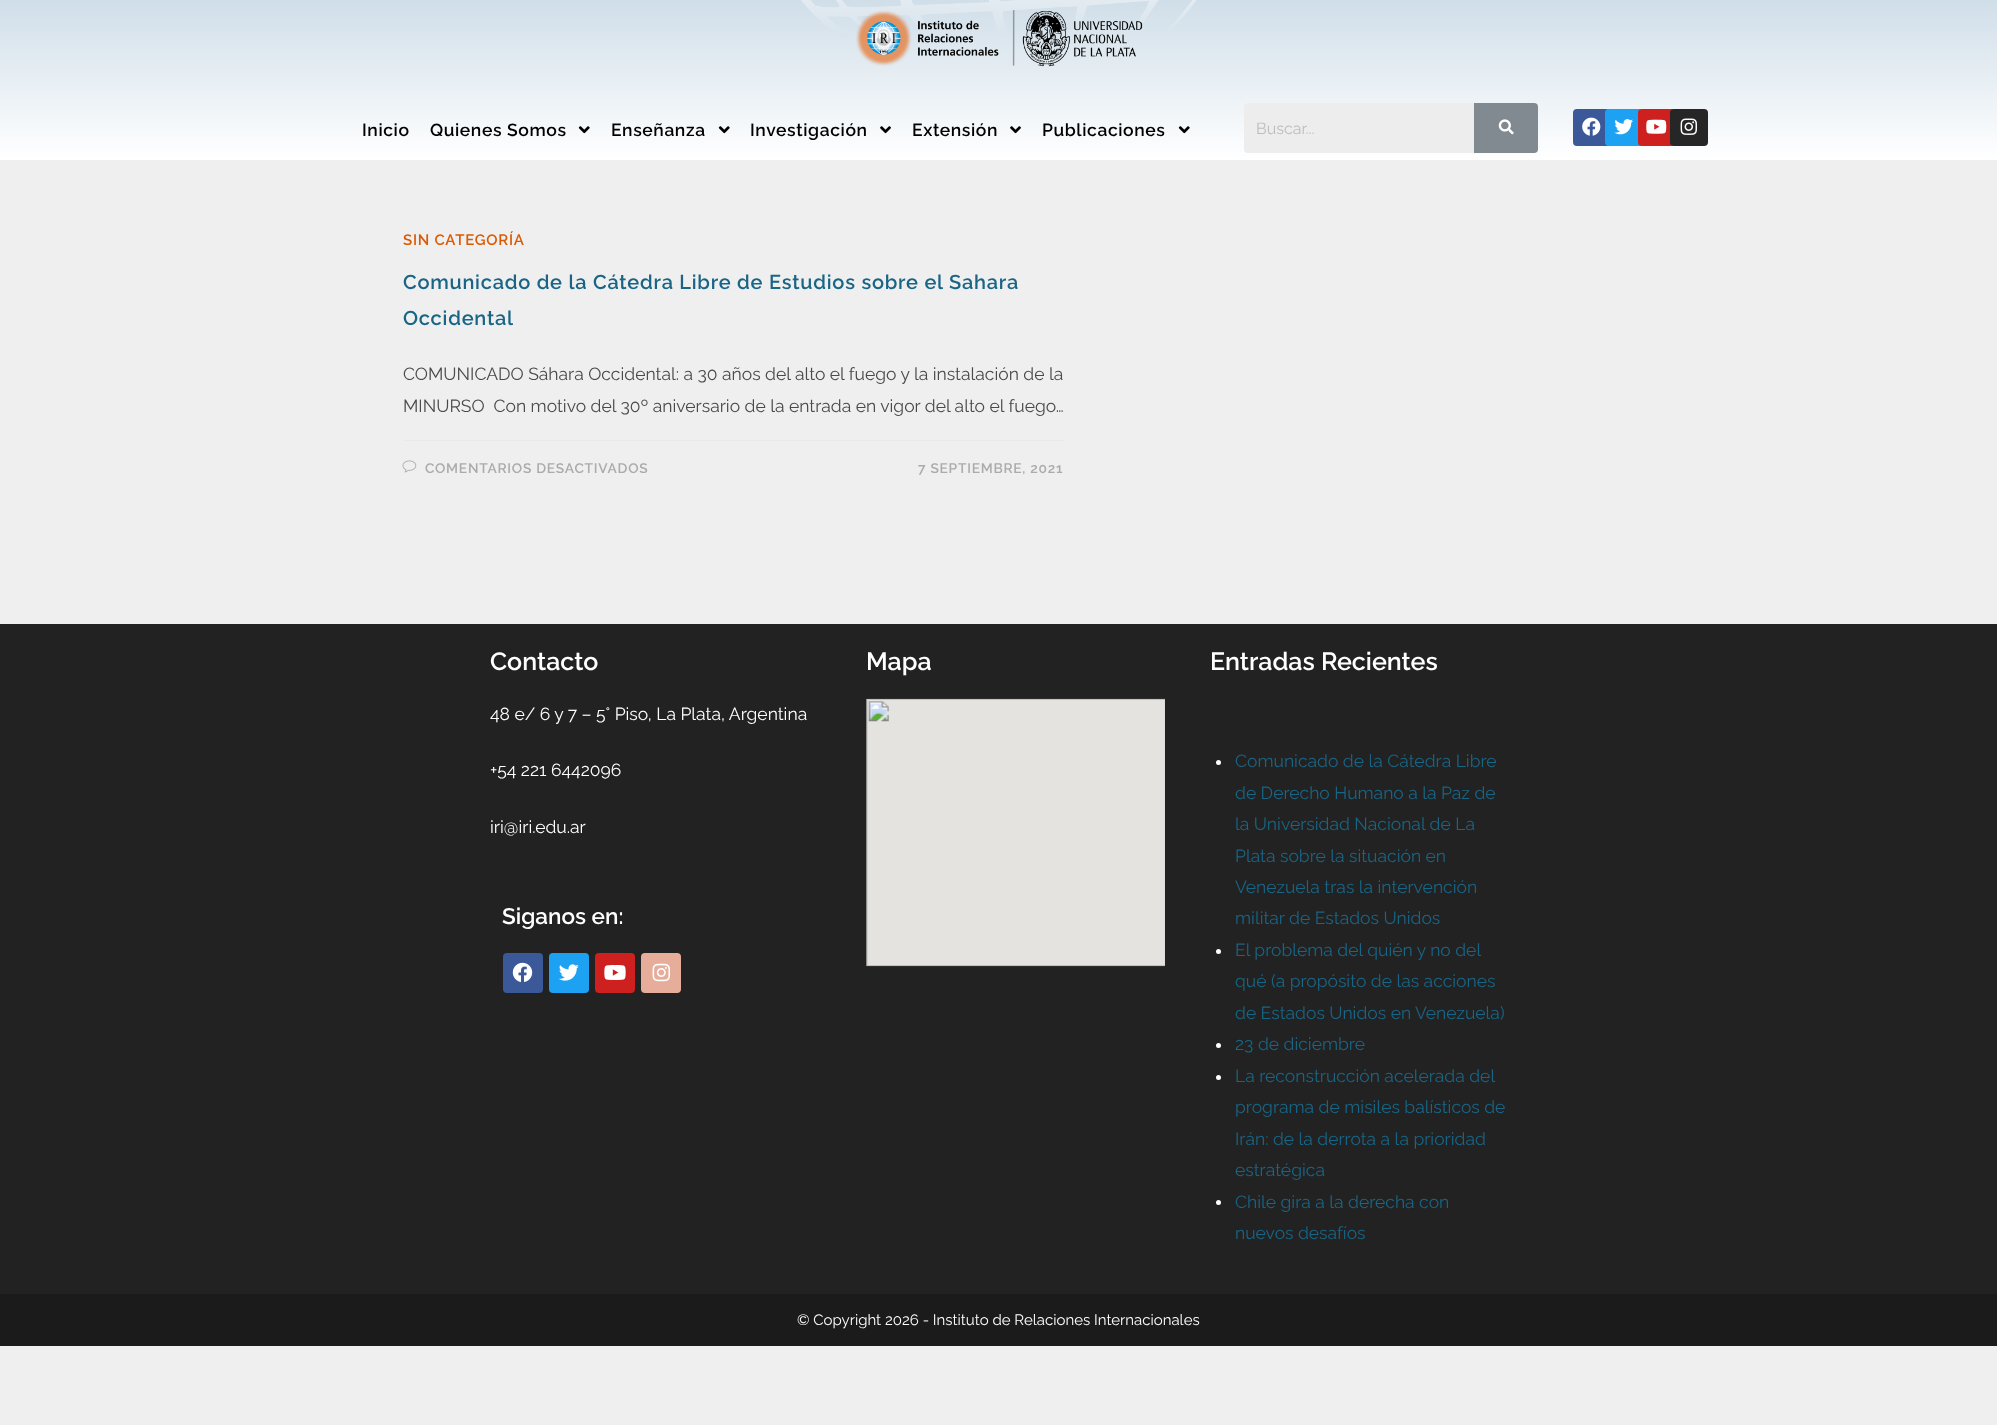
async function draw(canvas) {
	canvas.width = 1997;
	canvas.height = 1425;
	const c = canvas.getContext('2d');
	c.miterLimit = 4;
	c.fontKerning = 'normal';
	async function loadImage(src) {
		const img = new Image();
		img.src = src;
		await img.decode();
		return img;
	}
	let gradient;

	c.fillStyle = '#efefef';
	c.fillRect(0, 0, 1997, 1425);
	gradient = c.createLinearGradient(999, -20, 999, 160);
	gradient.addColorStop(0, '#cadae6');
	gradient.addColorStop(1, '#fff');
	c.fillStyle = gradient;
	c.fillRect(0, 0, 1997, 160);
	c.drawImage(await loadImage('img1.png'), 801, 0, 395, 67);
	c.letterSpacing = '0.6px';
	c.font = '600 17.5px Raleway';
	c.fillStyle = '#000';
	c.fillText('Inicio', 362, 136);
	c.fillText('Quienes Somos', 430, 136);
	c.drawImage(await loadImage('img2.png'), 578, 126, 12, 8);
	c.fillText('Enseñanza', 611, 136);
	c.drawImage(await loadImage('img2.png'), 718, 126, 12, 8);
	c.fillText('Investigación', 750, 136);
	c.drawImage(await loadImage('img3.png'), 880, 126, 11, 8);
	c.fillText('Extensión', 912, 136);
	c.drawImage(await loadImage('img3.png'), 1010, 126, 11, 8);
	c.fillText('Publicaciones', 1042, 136);
	c.drawImage(await loadImage('img2.png'), 1178, 126, 12, 8);
	c.fillStyle = '#ededed';
	c.beginPath();
	c.roundRect(1244, 103, 230, 50, [4, 0, 0, 4]);
	c.fill();
	c.letterSpacing = '0px';
	c.font = '16px Raleway';
	c.fillStyle = '#bdbdbd';
	c.fillText('Buscar...', 1256, 134);
	c.fillStyle = '#818a91';
	c.beginPath();
	c.roundRect(1474, 103, 64, 50, [0, 4, 4, 0]);
	c.fill();
	c.drawImage(await loadImage('img4.png'), 1498, 119, 16, 16);
	c.fillStyle = '#3b5998';
	c.beginPath();
	c.roundRect(1573, 109, 37, 37, 4);
	c.fill();
	c.drawImage(await loadImage('img5.png'), 1582, 117, 19, 19);
	c.fillStyle = '#1da1f2';
	c.beginPath();
	c.roundRect(1605, 109, 38, 37, 4);
	c.fill();
	c.drawImage(await loadImage('img6.png'), 1614, 119, 19, 16);
	c.fillStyle = '#cd201f';
	c.beginPath();
	c.roundRect(1638, 109, 37, 37, 4);
	c.fill();
	c.drawImage(await loadImage('img7.png'), 1646, 119, 21, 15);
	c.fillStyle = '#262626';
	c.beginPath();
	c.roundRect(1670, 109, 38, 37, 4);
	c.fill();
	c.drawImage(await loadImage('img8.png'), 1680, 118, 17, 17);
	c.letterSpacing = '0.75px';
	c.font = '600 15px Raleway';
	c.fillStyle = '#db5a04';
	c.fillText('SIN CATEGORÍA', 403, 245);
	c.font = '600 20px Raleway';
	c.fillStyle = '#196585';
	c.fillText('Comunicado de la Cátedra Libre de Estudios sobre el Sahara', 403, 289);
	c.fillText('Occidental', 403, 325);
	c.letterSpacing = '0px';
	c.font = '17.5px Raleway';
	c.fillStyle = '#4a4a4a';
	c.fillText('COMUNICADO Sáhara Occidental: a 30 años del alto el fuego y la instalación de la', 403, 380);
	c.fillText('MINURSO  Con motivo del 30º aniversario de la entrada en vigor del alto el fuego…', 403, 412);
	c.fillStyle = '#e9e9e9';
	c.fillRect(403, 440, 661, 1);
	c.drawImage(await loadImage('img9.png'), 402, 460, 15, 13);
	c.letterSpacing = '0.75px';
	c.font = '600 13.75px Raleway';
	c.fillStyle = '#ababab';
	c.fillText('COMENTARIOS DESACTIVADOS', 425, 473);
	c.fillText('7 SEPTIEMBRE, 2021', 918, 473);
	c.fillStyle = '#222';
	c.fillRect(0, 624, 1997, 670);
	c.letterSpacing = '0px';
	c.font = '600 25px Raleway';
	c.fillStyle = '#fff';
	c.fillText('Contacto', 490, 670);
	c.font = '17.5px Raleway';
	for (const [text, x, y] of [
		['48 e/ 6 y 7 – 5° Piso, La Plata, Argentina', 490, 720],
		['+54 221 6442096', 490, 776],
		['iri@iri.edu.ar', 490, 833],
	]) {
		c.fillText(text, x, y);
	}
	c.font = '600 22.5px Raleway';
	c.fillText('Siganos en:', 502, 924);
	c.fillStyle = '#3b5998';
	c.beginPath();
	c.roundRect(503, 953, 40, 40, 4);
	c.fill();
	c.drawImage(await loadImage('img10.png'), 512, 962, 21, 20);
	c.fillStyle = '#1da1f2';
	c.beginPath();
	c.roundRect(549, 953, 40, 40, 4);
	c.fill();
	c.drawImage(await loadImage('img11.png'), 559, 964, 20, 17);
	c.fillStyle = '#cd201f';
	c.beginPath();
	c.roundRect(595, 953, 40, 40, 4);
	c.fill();
	c.drawImage(await loadImage('img12.png'), 604, 965, 22, 15);
	c.fillStyle = '#e6ad9a';
	c.beginPath();
	c.roundRect(641, 953, 40, 40, 4);
	c.fill();
	c.drawImage(await loadImage('img13.png'), 652, 963, 18, 19);
	c.font = '600 25px Raleway';
	c.fillStyle = '#fff';
	c.fillText('Mapa', 866, 670);
	c.drawImage(await loadImage('img14.png'), 866, 698, 299, 269);
	c.fillText('Entradas Recientes', 1210, 670);
	c.beginPath();
	c.arc(1218.5, 762.5, 2.5, 0, 2 * Math.PI);
	c.fill();
	c.font = '17.5px Raleway';
	c.fillStyle = '#196585';
	for (const [text, x, y] of [
		['Comunicado de la Cátedra Libre', 1235, 767],
		['de Derecho Humano a la Paz de', 1235, 799],
		['la Universidad Nacional de La', 1235, 830],
		['Plata sobre la situación en', 1235, 862],
		['Venezuela tras la intervención', 1235, 893],
		['militar de Estados Unidos', 1235, 924],
	]) {
		c.fillText(text, x, y);
	}
	c.fillStyle = '#fff';
	c.beginPath();
	c.arc(1218.5, 951.5, 2.5, 0, 2 * Math.PI);
	c.fill();
	c.fillStyle = '#196585';
	for (const [text, x, y] of [
		['El problema del quién y no del', 1235, 956],
		['qué (a propósito de las acciones', 1235, 987],
		['de Estados Unidos en Venezuela)', 1235, 1019],
	]) {
		c.fillText(text, x, y);
	}
	c.fillStyle = '#fff';
	c.beginPath();
	c.arc(1218.5, 1045.5, 2.5, 0, 2 * Math.PI);
	c.fill();
	c.fillStyle = '#196585';
	c.fillText('23 de diciembre', 1235, 1050);
	c.fillStyle = '#fff';
	c.beginPath();
	c.arc(1218.5, 1077.5, 2.5, 0, 2 * Math.PI);
	c.fill();
	c.fillStyle = '#196585';
	for (const [text, x, y] of [
		['La reconstrucción acelerada del', 1235, 1082],
		['programa de misiles balísticos de', 1235, 1113],
		['Irán: de la derrota a la prioridad', 1235, 1145],
		['estratégica', 1235, 1176],
	]) {
		c.fillText(text, x, y);
	}
	c.fillStyle = '#fff';
	c.beginPath();
	c.arc(1218.5, 1202.5, 2.5, 0, 2 * Math.PI);
	c.fill();
	c.fillStyle = '#196585';
	c.fillText('Chile gira a la derecha con', 1235, 1208);
	c.fillText('nuevos desafíos', 1235, 1239);
	c.fillStyle = '#1b1b1b';
	c.fillRect(0, 1294, 1997, 52);
	c.font = '15px Raleway';
	c.fillStyle = '#fff';
	c.fillText('© Copyright 2026 - Instituto de Relaciones Internacionales', 797, 1325);
}

draw(document.querySelector('canvas'));
